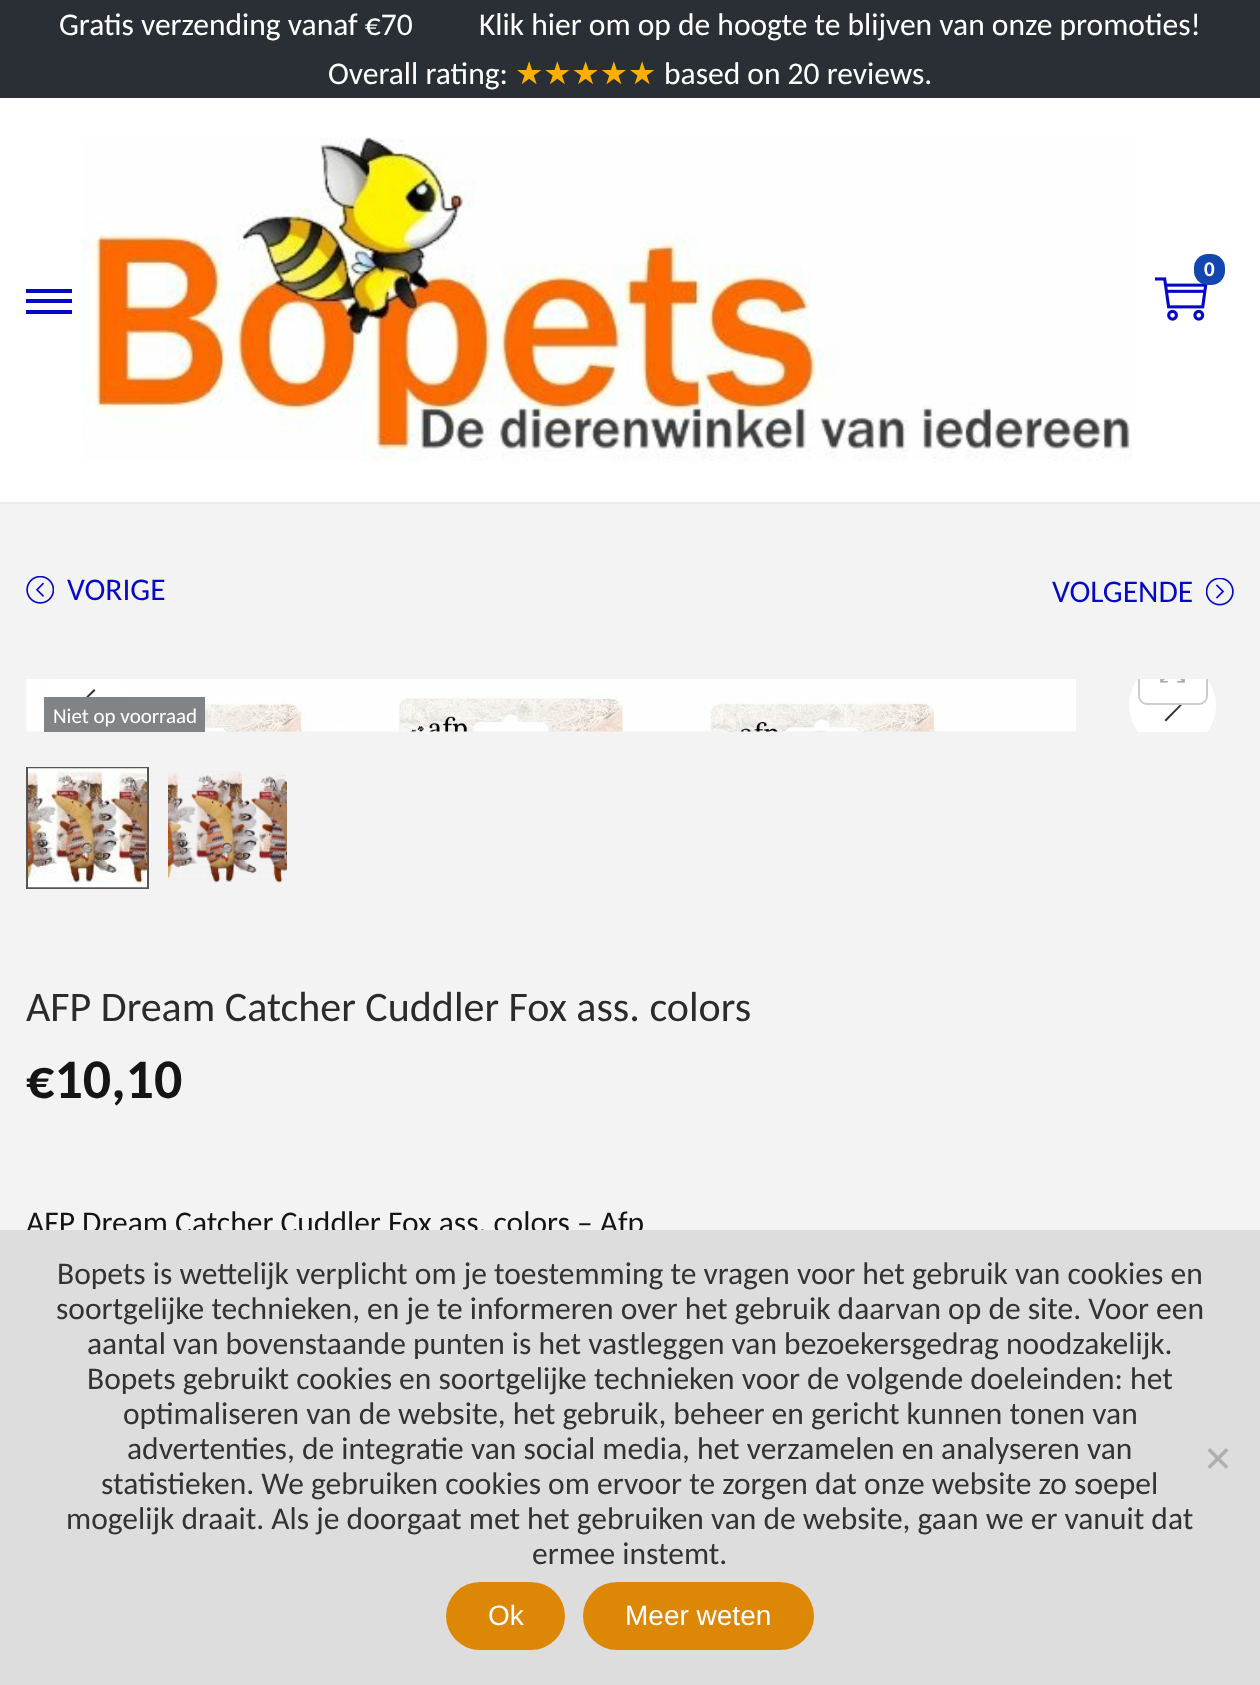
async function draw(canvas) {
	canvas.width = 1260;
	canvas.height = 1685;
	const c = canvas.getContext('2d');
	c.miterLimit = 4;
	c.fontKerning = 'normal';
	async function loadImage(src) {
		const img = new Image();
		img.src = src;
		await img.decode();
		return img;
	}

	c.fillStyle = '#fff';
	c.fillRect(0, 0, 1260, 1685);
	c.fillStyle = '#292f34';
	c.fillRect(0, 0, 1260, 98);
	c.font = '31.5px Carlito';
	c.fillStyle = '#fff';
	for (const [text, x, y] of [
		['Gratis verzending vanaf €70', 59, 35],
		['Klik hier om op de hoogte te blijven van onze promoties!', 479, 35],
		['Overall rating:', 328, 84],
	]) {
		c.fillText(text, x, y);
	}
	c.font = '31.5px DejaVu Sans';
	c.fillStyle = '#ffaf00';
	c.fillText('★★★★★', 515, 84);
	c.font = '31.5px Carlito';
	c.fillStyle = '#fff';
	c.fillText('based on 20 reviews.', 664, 84);
	c.fillStyle = '#eaeaea';
	c.fillRect(0, 502, 1260, 2);
	c.drawImage(await loadImage('img1.png'), 82, 137, 1050, 325);
	c.drawImage(await loadImage('img2.png'), 1155, 277, 53, 44);
	c.fillStyle = '#1346af';
	c.beginPath();
	c.roundRect(1194, 254, 31, 31, 14);
	c.fill();
	c.font = 'bold 21px Carlito';
	c.fillStyle = '#fff';
	c.fillText('0', 1204, 276);
	for (const [x, y, w, h, color] of [
		[26, 299, 46, 4, '#0509c6'],
		[26, 289, 46, 4, '#0509c6'],
		[26, 310, 46, 4, '#0509c6'],
		[0, 679, 1260, 551, '#f3f3f3'],
	]) {
		c.fillStyle = color;
		c.fillRect(x, y, w, h);
	}
	c.drawImage(await loadImage('img6.png'), 26, 679, 1050, 53);
	c.save();
	c.beginPath();
	c.rect(26, 679, 1208, 53);
	c.clip();
	c.fillStyle = '#fff';
	c.beginPath();
	c.arc(87.5, 705.5, 43.5, 0, 2 * Math.PI);
	c.fill();
	c.beginPath();
	c.arc(1172.5, 705.5, 43.5, 0, 2 * Math.PI);
	c.fill();
	c.restore();
	c.fillRect(0, 504, 1260, 175);
	c.drawImage(await loadImage('img3.png'), 26, 576, 28, 28);
	c.font = '31.5px Carlito';
	c.fillStyle = '#0509c6';
	c.fillText('VORIGE', 67, 600);
	c.fillText('VOLGENDE', 1052, 602);
	c.drawImage(await loadImage('img4.png'), 1206, 578, 28, 28);
	c.fillStyle = '#333';
	c.beginPath();
	c.moveTo(1182, 705);
	c.lineTo(1166, 721.5);
	c.lineTo(1164.5, 720);
	c.lineTo(1179.5, 705);
	c.lineTo(1164.5, 690.5);
	c.lineTo(1166, 689);
	c.closePath();
	c.fill();
	c.fillStyle = '#fff';
	c.beginPath();
	c.roundRect(1138, 679, 70, 26, [0, 0, 9, 9]);
	c.fill();
	c.save();
	c.beginPath();
	c.rect(26, 679, 1208, 53);
	c.clip();
	c.beginPath();
	c.roundRect(1139, 636, 68, 68, 8);
	c.strokeStyle = '#ccc';
	c.lineWidth = 2;
	c.stroke();
	c.restore();
	c.drawImage(await loadImage('img5.png'), 1160, 679, 25, 4);
	c.fillStyle = '#333';
	c.beginPath();
	c.moveTo(80.5, 705);
	c.lineTo(95.5, 720);
	c.lineTo(94, 721.5);
	c.lineTo(78, 705);
	c.lineTo(94, 689);
	c.lineTo(95.5, 690.5);
	c.closePath();
	c.fill();
	c.fillStyle = '#818486';
	c.fillRect(44, 697, 161, 35);
	c.font = '21px Carlito';
	c.fillStyle = '#fff';
	c.fillText('Niet op voorraad', 53, 723);
	c.strokeStyle = '#555';
	c.lineWidth = 2;
	c.strokeRect(27, 768, 121, 120);
	c.drawImage(await loadImage('img7.png'), 28, 768, 119, 120);
	c.drawImage(await loadImage('img8.png'), 168, 771, 119, 112);
	c.font = '42px Carlito';
	c.fillStyle = '#2b2b2b';
	c.fillText('AFP Dream Catcher Cuddler Fox ass. colors', 26, 1021);
	c.font = 'bold 56px Carlito';
	c.fillStyle = '#151515';
	c.fillText('€10,10', 26, 1098);
	c.font = '31.5px Carlito';
	c.fillText('AFP Dream Catcher Cuddler Fox ass. colors – Afp', 26, 1233);
	c.fillStyle = '#ddd';
	c.fillRect(0, 1230, 1260, 455);
	c.fillStyle = '#333';
	for (const [text, x, y] of [
		['Bopets is wettelijk verplicht om je toestemming te vragen voor het gebruik van cookies en', 57, 1284],
		['soortgelijke technieken, en je te informeren over het gebruik daarvan op de site. Voor een', 56, 1319],
		['aantal van bovenstaande punten is het vastleggen van bezoekersgedrag noodzakelijk.', 87, 1354],
		['Bopets gebruikt cookies en soortgelijke technieken voor de volgende doeleinden: het', 87, 1389],
		['optimaliseren van de website, het gebruik, beheer en gericht kunnen tonen van', 123, 1424],
		['advertenties, de integratie van social media, het verzamelen en analyseren van', 127, 1459],
		['statistieken. We gebruiken cookies om ervoor te zorgen dat onze website zo soepel', 101, 1494],
		['mogelijk draait. Als je doorgaat met het gebruiken van de website, gaan we er vanuit dat', 66, 1529],
		['ermee instemt.', 532, 1564],
	]) {
		c.fillText(text, x, y);
	}
	c.fillStyle = '#afafaf';
	c.beginPath();
	c.moveTo(1226, 1448);
	c.lineTo(1228.5, 1450.5);
	c.lineTo(1210, 1469);
	c.lineTo(1207.5, 1466.5);
	c.closePath();
	c.fill();
	c.beginPath();
	c.moveTo(1207.5, 1450.5);
	c.lineTo(1210, 1448);
	c.lineTo(1228.5, 1466.5);
	c.lineTo(1226, 1469);
	c.closePath();
	c.fill();
	c.fillStyle = '#dd8706';
	c.beginPath();
	c.roundRect(446, 1582, 119, 68, 34);
	c.fill();
	c.font = '28px Liberation Sans';
	c.fillStyle = '#fff';
	c.fillText('Ok', 488, 1625);
	c.fillStyle = '#dd8706';
	c.beginPath();
	c.roundRect(583, 1582, 231, 68, 34);
	c.fill();
	c.fillStyle = '#fff';
	c.fillText('Meer weten', 625, 1625);
}

draw(document.querySelector('canvas'));
